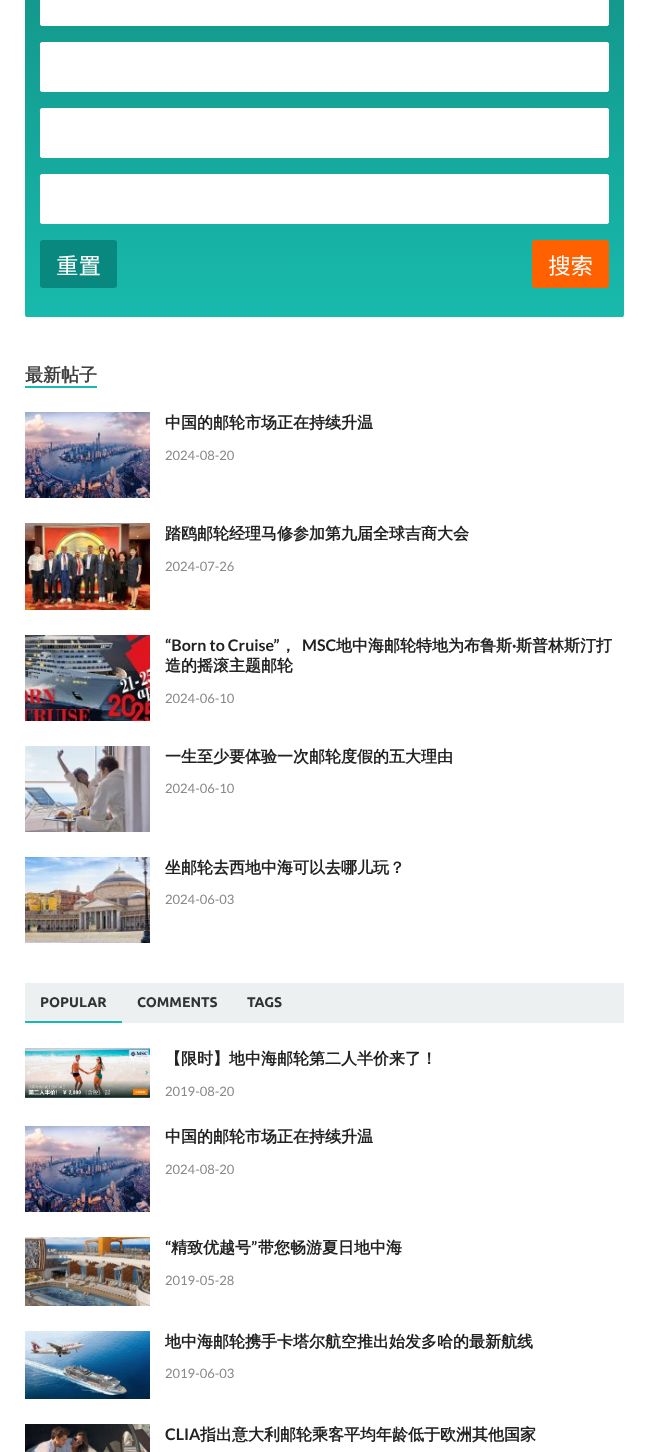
async function draw(canvas) {
	canvas.width = 649;
	canvas.height = 1452;
	const c = canvas.getContext('2d');
	c.miterLimit = 4;
	c.fontKerning = 'normal';
	async function loadImage(src) {
		const img = new Image();
		img.src = src;
		await img.decode();
		return img;
	}

	c.fillStyle = '#fff';
	c.fillRect(0, 0, 649, 1452);
	c.drawImage(await loadImage('img1.png'), 25, 0, 599, 317);
	c.fillStyle = '#18baad';
	c.fillRect(25, 386, 72, 2);
	c.font = 'bold 18px WenQuanYi Zen Hei';
	c.fillStyle = '#404040';
	c.fillText('最新帖子', 25, 381);
	c.drawImage(await loadImage('img2.png'), 25, 412, 125, 86);
	c.font = 'bold 16px WenQuanYi Zen Hei';
	c.fillStyle = '#222';
	c.fillText('中国的邮轮市场正在持续升温', 165, 428);
	c.font = '13px Lato';
	c.fillStyle = '#888';
	c.fillText('2024-08-20', 165, 460);
	c.drawImage(await loadImage('img3.png'), 25, 523, 125, 87);
	c.font = 'bold 16px WenQuanYi Zen Hei';
	c.fillStyle = '#222';
	c.fillText('踏鸥邮轮经理马修参加第九届全球吉商大会', 165, 539);
	c.font = '13px Lato';
	c.fillStyle = '#888';
	c.fillText('2024-07-26', 165, 571);
	c.drawImage(await loadImage('img4.png'), 25, 635, 125, 86);
	c.font = 'bold 16px Lato';
	c.fillStyle = '#222';
	c.fillText('“Born to Cruise”', 165, 651);
	c.fillText('MSC', 302, 651);
	c.font = 'bold 16px WenQuanYi Zen Hei';
	c.fillText('地中海邮轮特地为布鲁斯', 336, 651);
	c.font = 'bold 16px Lato';
	c.fillText('·', 512, 651);
	c.font = 'bold 16px WenQuanYi Zen Hei';
	for (const [text, x, y] of [
		['斯普林斯汀打', 516, 651],
		['，', 280, 651],
		['造的摇滚主题邮轮', 165, 671],
	]) {
		c.fillText(text, x, y);
	}
	c.font = '13px Lato';
	c.fillStyle = '#888';
	c.fillText('2024-06-10', 165, 703);
	c.drawImage(await loadImage('img5.png'), 25, 746, 125, 86);
	c.font = 'bold 16px WenQuanYi Zen Hei';
	c.fillStyle = '#222';
	c.fillText('一生至少要体验一次邮轮度假的五大理由', 165, 762);
	c.font = '13px Lato';
	c.fillStyle = '#888';
	c.fillText('2024-06-10', 165, 793);
	c.drawImage(await loadImage('img6.png'), 25, 857, 125, 86);
	c.font = 'bold 16px WenQuanYi Zen Hei';
	c.fillStyle = '#222';
	c.fillText('坐邮轮去西地中海可以去哪儿玩？', 165, 873);
	c.font = '13px Lato';
	c.fillStyle = '#888';
	c.fillText('2024-06-03', 165, 904);
	c.fillStyle = '#ecf0f1';
	c.fillRect(25, 983, 599, 40);
	c.fillStyle = '#18baad';
	c.fillRect(25, 1021, 97, 2);
	c.font = 'bold 14px Ubuntu';
	c.fillStyle = '#333';
	for (const [text, x, y] of [
		['POPULAR', 40, 1007],
		['COMMENTS', 137, 1007],
		['TAGS', 247, 1007],
	]) {
		c.fillText(text, x, y);
	}
	c.drawImage(await loadImage('img7.png'), 25, 1048, 125, 50);
	c.font = 'bold 16px WenQuanYi Zen Hei';
	c.fillStyle = '#222';
	c.fillText('【限时】地中海邮轮第二人半价来了！', 165, 1064);
	c.font = '13px Lato';
	c.fillStyle = '#888';
	c.fillText('2019-08-20', 165, 1096);
	c.drawImage(await loadImage('img8.png'), 25, 1126, 125, 86);
	c.font = 'bold 16px WenQuanYi Zen Hei';
	c.fillStyle = '#222';
	c.fillText('中国的邮轮市场正在持续升温', 165, 1142);
	c.font = '13px Lato';
	c.fillStyle = '#888';
	c.fillText('2024-08-20', 165, 1174);
	c.drawImage(await loadImage('img9.png'), 25, 1237, 125, 69);
	c.font = 'bold 16px Lato';
	c.fillStyle = '#222';
	c.fillText('“', 165, 1253);
	c.font = 'bold 16px WenQuanYi Zen Hei';
	c.fillText('精致优越号', 171, 1253);
	c.font = 'bold 16px Lato';
	c.fillText('”', 251, 1253);
	c.font = 'bold 16px WenQuanYi Zen Hei';
	c.fillText('带您畅游夏日地中海', 258, 1253);
	c.font = '13px Lato';
	c.fillStyle = '#888';
	c.fillText('2019-05-28', 165, 1285);
	c.drawImage(await loadImage('img10.png'), 25, 1331, 125, 68);
	c.font = 'bold 16px WenQuanYi Zen Hei';
	c.fillStyle = '#222';
	c.fillText('地中海邮轮携手卡塔尔航空推出始发多哈的最新航线', 165, 1347);
	c.font = '13px Lato';
	c.fillStyle = '#888';
	c.fillText('2019-06-03', 165, 1378);
	c.drawImage(await loadImage('img11.png'), 25, 1424, 125, 28);
	c.font = 'bold 16px Lato';
	c.fillStyle = '#222';
	c.fillText('CLIA', 165, 1440);
	c.font = 'bold 16px WenQuanYi Zen Hei';
	c.fillText('指出意大利邮轮乘客平均年龄低于欧洲其他国家', 200, 1440);
}

draw(document.querySelector('canvas'));
